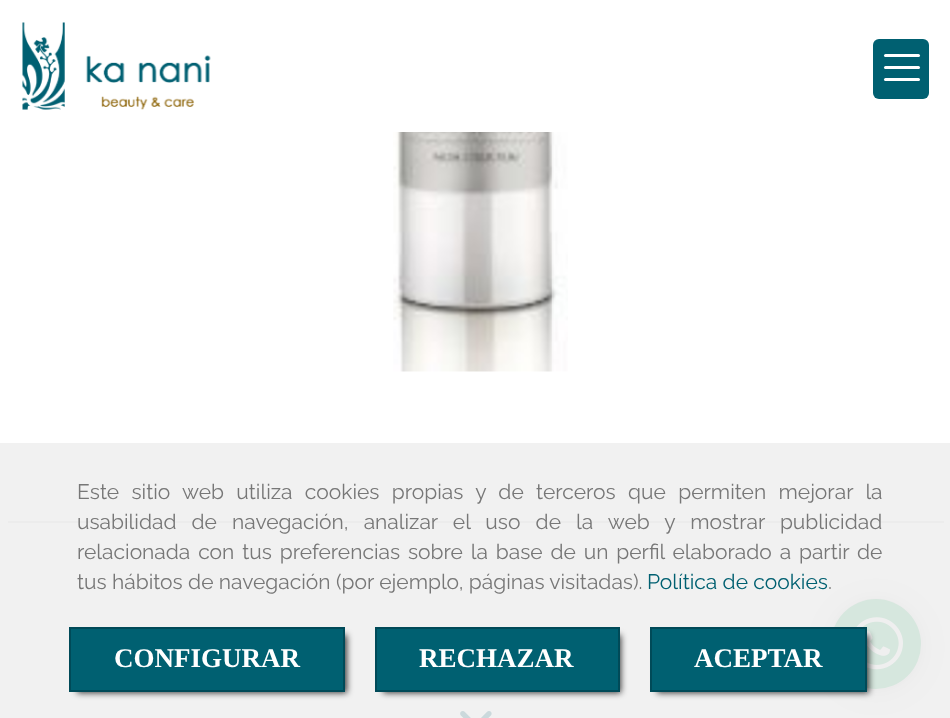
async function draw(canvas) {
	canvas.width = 950;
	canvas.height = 718;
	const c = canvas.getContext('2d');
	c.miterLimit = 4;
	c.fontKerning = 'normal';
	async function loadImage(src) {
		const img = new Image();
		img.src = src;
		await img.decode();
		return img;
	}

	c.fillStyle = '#fff';
	c.fillRect(0, 0, 950, 718);
	c.drawImage(await loadImage('img1.png'), 22, 22, 189, 88);
	c.fillStyle = '#006071';
	c.beginPath();
	c.roundRect(873, 39, 56, 60, 6);
	c.fill();
	c.fillStyle = '#fff';
	c.beginPath();
	c.roundRect(884, 66, 36, 3, 1.5);
	c.fill();
	c.beginPath();
	c.roundRect(884, 54, 36, 3, 1.5);
	c.fill();
	c.beginPath();
	c.roundRect(884, 78, 36, 3, 1.5);
	c.fill();
	c.drawImage(await loadImage('img2.png'), 393, 132, 175, 240);
	c.fillStyle = '#ddd';
	c.fillRect(8, 521, 936, 2);
	c.drawImage(await loadImage('img3.png'), 460, 711, 32, 7);
	c.fillStyle = '#00000033';
	c.filter = 'blur(24px)';
	c.beginPath();
	c.roundRect(831, 602, 90, 90, 45);
	c.fill();
	c.filter = 'none';
	c.fillStyle = '#0000001a';
	c.filter = 'blur(4.5px)';
	c.beginPath();
	c.roundRect(831, 600, 90, 90, 45);
	c.fill();
	c.filter = 'none';
	c.fillStyle = '#4eb980';
	c.beginPath();
	c.arc(876, 644, 45, 0, 2 * Math.PI);
	c.fill();
	c.drawImage(await loadImage('img4.png'), 856, 617, 47, 53);
	c.fillStyle = '#eeeeeed9';
	c.fillRect(0, 443, 950, 275);
	c.wordSpacing = '7px';
	c.font = '100 21px Raleway';
	c.fillStyle = '#777';
	c.fillText('Este sitio web utiliza cookies propias y de terceros que permiten mejorar la', 77, 499);
	c.wordSpacing = '9.75px';
	c.fillText('usabilidad de navegación, analizar el uso de la web y mostrar publicidad', 77, 529);
	c.wordSpacing = '2.5px';
	c.fillText('relacionada con tus preferencias sobre la base de un perfil elaborado a partir de', 77, 559);
	c.wordSpacing = '0px';
	c.fillText('tus hábitos de navegación (por ejemplo, páginas visitadas).', 77, 589);
	c.fillStyle = '#006071';
	c.fillText('Política de cookies', 647, 589);
	c.fillStyle = '#777';
	c.fillText('.', 828, 589);
	c.fillStyle = '#000000bf';
	c.filter = 'blur(3px)';
	c.beginPath();
	c.rect(77, 635, 270, 58);
	c.fill();
	c.filter = 'none';
	c.fillStyle = '#006071';
	c.beginPath();
	c.rect(70, 628, 274, 63);
	c.fill();
	c.strokeStyle = '#004a58';
	c.lineWidth = 2;
	c.stroke();
	c.font = 'bold 27px Liberation Serif';
	c.fillStyle = '#fff';
	c.fillText('CONFIGURAR', 114, 667);
	c.fillStyle = '#000000bf';
	c.filter = 'blur(3px)';
	c.beginPath();
	c.rect(383, 635, 238, 58);
	c.fill();
	c.filter = 'none';
	c.fillStyle = '#006071';
	c.beginPath();
	c.rect(376, 628, 243, 63);
	c.fill();
	c.stroke();
	c.fillStyle = '#fff';
	c.fillText('RECHAZAR', 419, 667);
	c.fillStyle = '#000000bf';
	c.filter = 'blur(3px)';
	c.beginPath();
	c.rect(657, 635, 212, 58);
	c.fill();
	c.filter = 'none';
	c.fillStyle = '#006071';
	c.beginPath();
	c.rect(651, 628, 215, 63);
	c.fill();
	c.stroke();
	c.fillStyle = '#fff';
	c.fillText('ACEPTAR', 694, 667);
}

draw(document.querySelector('canvas'));
